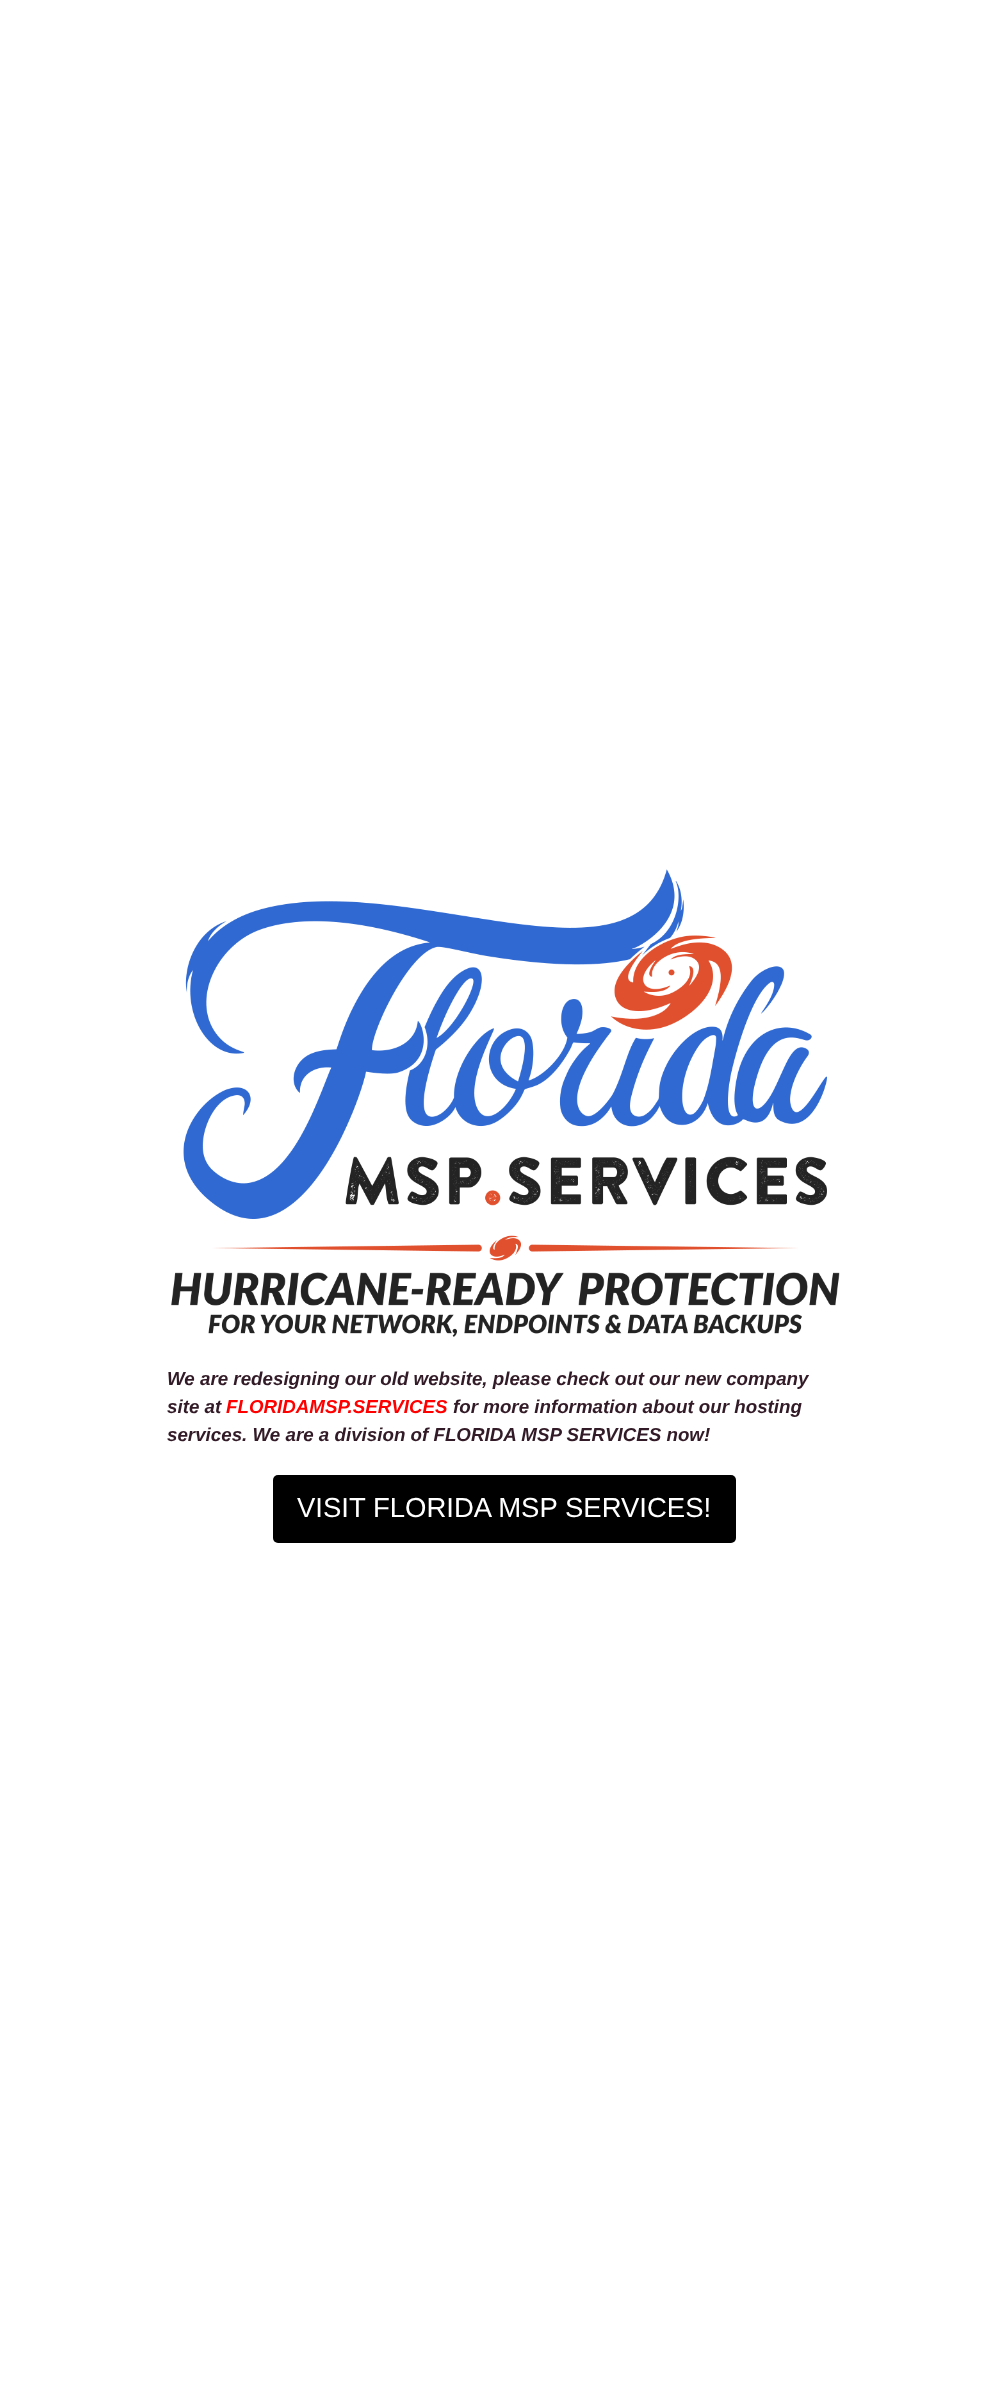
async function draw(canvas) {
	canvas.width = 1008;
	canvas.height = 2408;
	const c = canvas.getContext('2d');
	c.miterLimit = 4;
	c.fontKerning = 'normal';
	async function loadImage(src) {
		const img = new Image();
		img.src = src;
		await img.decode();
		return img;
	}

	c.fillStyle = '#fff';
	c.fillRect(0, 0, 1008, 2408);
	c.drawImage(await loadImage('img1.png'), 171, 869, 669, 468);
	c.font = 'italic bold 18.75px Liberation Sans';
	c.fillStyle = '#321b26';
	c.fillText('We are redesigning our old website, please check out our new company', 167, 1385);
	c.fillText('site at', 167, 1413);
	c.fillStyle = '#f00';
	c.fillText('FLORIDAMSP.SERVICES', 226, 1413);
	c.fillStyle = '#321b26';
	c.fillText('for more information about our hosting', 453, 1413);
	c.fillText('services. We are a division of FLORIDA MSP SERVICES now!', 167, 1441);
	c.fillStyle = '#000';
	c.beginPath();
	c.roundRect(273, 1475, 463, 68, 5);
	c.fill();
	c.font = '27.5px Liberation Sans';
	c.fillStyle = '#fff';
	c.fillText('VISIT FLORIDA MSP SERVICES!', 297, 1517);
}

draw(document.querySelector('canvas'));
